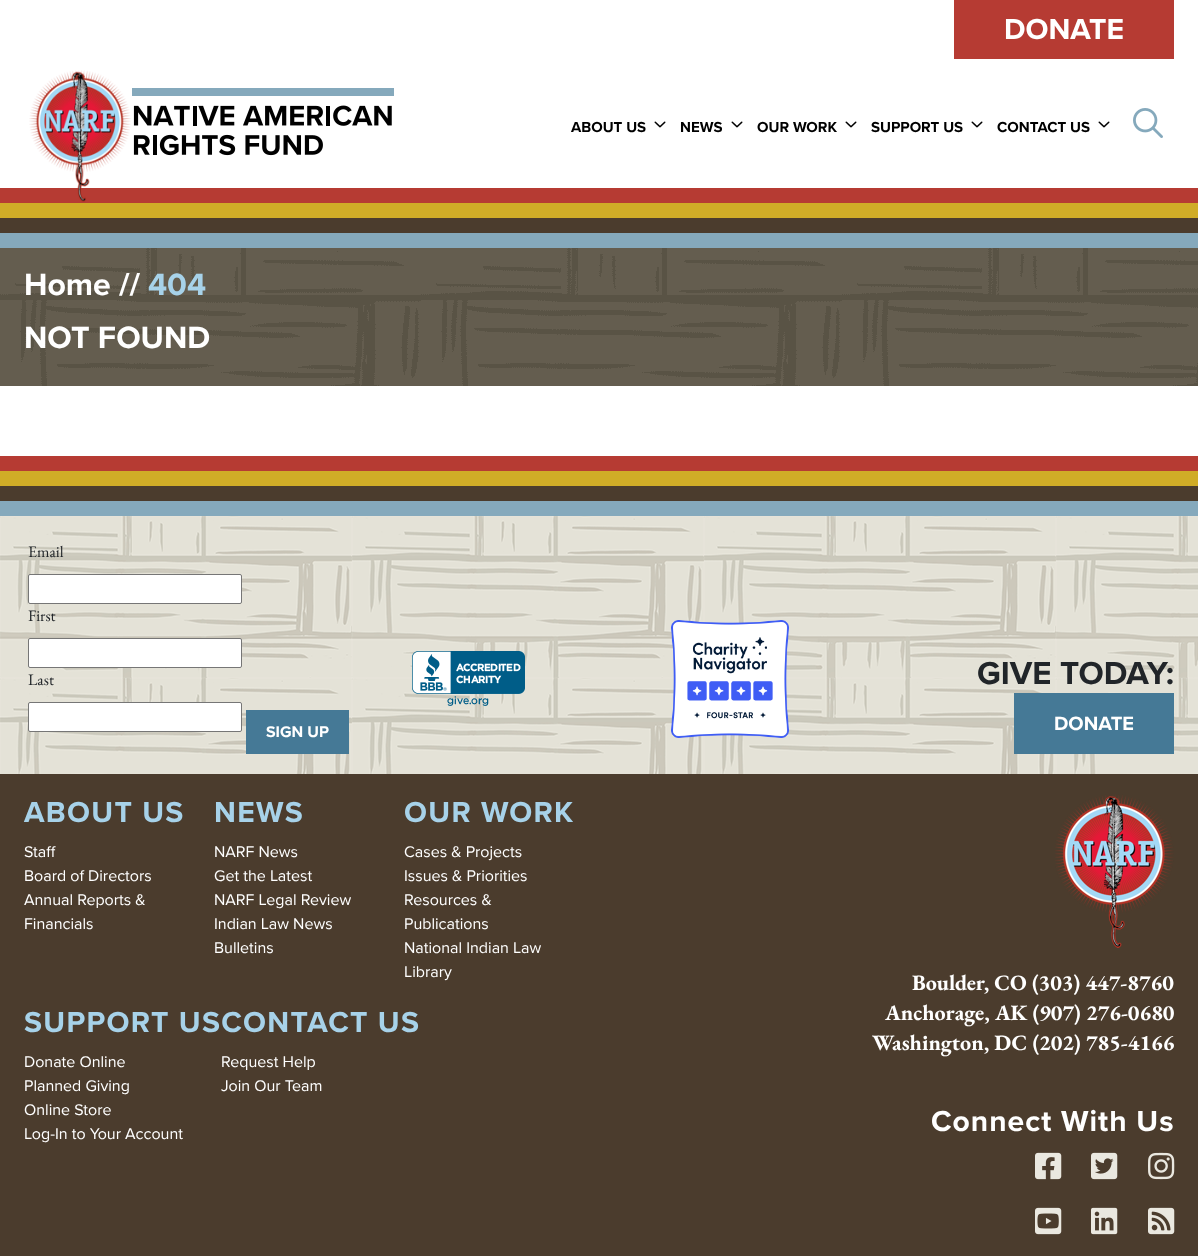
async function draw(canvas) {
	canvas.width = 1198;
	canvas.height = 1256;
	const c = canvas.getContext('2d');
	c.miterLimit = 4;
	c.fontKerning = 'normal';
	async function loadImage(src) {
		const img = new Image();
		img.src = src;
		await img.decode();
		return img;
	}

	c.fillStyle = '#fff';
	c.fillRect(0, 0, 1198, 1256);
	c.fillStyle = '#b63b33';
	c.fillRect(954, 0, 220, 59);
	c.font = 'bold 30px Proxima Nova';
	c.fillStyle = '#fff';
	c.fillText('DONATE', 1004, 39);
	c.drawImage(await loadImage('img5.png'), 0, 188, 1198, 60);
	c.drawImage(await loadImage('img1.png'), 29, 70, 102, 132);
	c.drawImage(await loadImage('img2.png'), 132, 88, 262, 68);
	c.font = 'bold 15px Proxima Nova';
	c.fillStyle = '#000';
	c.fillText('ABOUT US', 571, 132);
	c.drawImage(await loadImage('img3.png'), 654, 121, 12, 7);
	c.fillText('NEWS', 680, 132);
	c.drawImage(await loadImage('img3.png'), 731, 121, 12, 7);
	c.fillText('OUR WORK', 757, 132);
	c.drawImage(await loadImage('img3.png'), 845, 121, 12, 7);
	c.fillText('SUPPORT US', 871, 132);
	c.drawImage(await loadImage('img3.png'), 971, 121, 12, 7);
	c.fillText('CONTACT US', 997, 132);
	c.drawImage(await loadImage('img3.png'), 1098, 121, 12, 7);
	c.drawImage(await loadImage('img4.png'), 1133, 108, 30, 30);
	c.drawImage(await loadImage('img6.png'), 0, 248, 1198, 138);
	c.font = 'bold 32px Proxima Nova';
	c.fillStyle = '#fff';
	c.fillText('Home //', 24, 295);
	c.fillStyle = '#a7d2e9';
	c.fillText('404', 148, 295);
	c.fillStyle = '#fff';
	c.fillText('NOT FOUND', 24, 348);
	c.drawImage(await loadImage('img5.png'), 0, 456, 1198, 60);
	c.drawImage(await loadImage('img7.png'), 0, 516, 1198, 258);
	c.font = '16px EB Garamond';
	c.fillStyle = '#212529';
	c.fillText('Email', 28, 557);
	c.fillStyle = '#fff';
	c.beginPath();
	c.roundRect(28.5, 574.5, 213, 29, 1.5);
	c.fill();
	c.strokeStyle = '#767676';
	c.stroke();
	c.fillStyle = '#212529';
	c.fillText('First', 28, 621);
	c.fillStyle = '#fff';
	c.beginPath();
	c.roundRect(28.5, 638.5, 213, 29, 1.5);
	c.fill();
	c.stroke();
	c.fillStyle = '#212529';
	c.fillText('Last', 28, 685);
	c.fillStyle = '#fff';
	c.beginPath();
	c.roundRect(28.5, 702.5, 213, 29, 1.5);
	c.fill();
	c.stroke();
	c.fillStyle = '#457996';
	c.fillRect(246, 710, 103, 44);
	c.font = 'bold 16px Proxima Nova';
	c.fillStyle = '#fff';
	c.fillText('SIGN UP', 266, 737);
	c.drawImage(await loadImage('img8.png'), 412, 651, 113, 55);
	c.drawImage(await loadImage('img9.png'), 671, 620, 118, 118);
	c.font = 'bold 33px Proxima Nova';
	c.fillStyle = '#212529';
	c.fillText('GIVE TODAY:', 977, 684);
	c.fillStyle = '#457996';
	c.fillRect(1014, 693, 160, 61);
	c.font = 'bold 20px Proxima Nova';
	c.fillStyle = '#fff';
	c.fillText('DONATE', 1054, 730);
	c.fillStyle = '#4b3c2d';
	c.fillRect(0, 774, 1198, 482);
	c.letterSpacing = '1.3px';
	c.font = 'bold 30px Proxima Nova';
	c.fillStyle = '#a7d2e9';
	c.fillText('ABOUT US', 24, 822);
	c.letterSpacing = '0px';
	c.font = '16px Proxima Nova';
	c.fillStyle = '#fff';
	for (const [text, x, y] of [
		['Staff', 24, 857],
		['Board of Directors', 24, 881],
		['Annual Reports &', 24, 905],
		['Financials', 24, 929],
	]) {
		c.fillText(text, x, y);
	}
	c.letterSpacing = '1.3px';
	c.font = 'bold 30px Proxima Nova';
	c.fillStyle = '#a7d2e9';
	c.fillText('NEWS', 214, 822);
	c.letterSpacing = '0px';
	c.font = '16px Proxima Nova';
	c.fillStyle = '#fff';
	for (const [text, x, y] of [
		['NARF News', 214, 857],
		['Get the Latest', 214, 881],
		['NARF Legal Review', 214, 905],
		['Indian Law News', 214, 929],
		['Bulletins', 214, 953],
	]) {
		c.fillText(text, x, y);
	}
	c.letterSpacing = '1.3px';
	c.font = 'bold 30px Proxima Nova';
	c.fillStyle = '#a7d2e9';
	c.fillText('OUR WORK', 404, 822);
	c.letterSpacing = '0px';
	c.font = '16px Proxima Nova';
	c.fillStyle = '#fff';
	for (const [text, x, y] of [
		['Cases & Projects', 404, 857],
		['Issues & Priorities', 404, 881],
		['Resources &', 404, 905],
		['Publications', 404, 929],
		['National Indian Law', 404, 953],
		['Library', 404, 977],
	]) {
		c.fillText(text, x, y);
	}
	c.letterSpacing = '1.3px';
	c.font = 'bold 30px Proxima Nova';
	c.fillStyle = '#a7d2e9';
	c.fillText('SUPPORT USCONTACT US', 24, 1032);
	c.letterSpacing = '0px';
	c.font = '16px Proxima Nova';
	c.fillStyle = '#fff';
	for (const [text, x, y] of [
		['Donate Online', 24, 1067],
		['Planned Giving', 24, 1091],
		['Online Store', 24, 1115],
		['Log-In to Your Account', 24, 1139],
		['Request Help', 221, 1067],
		['Join Our Team', 221, 1091],
	]) {
		c.fillText(text, x, y);
	}
	c.drawImage(await loadImage('img10.png'), 1055, 794, 119, 154);
	c.font = 'bold 22px EB Garamond';
	for (const [text, x, y] of [
		['Boulder, CO (303) 447-8760', 912, 990],
		['Anchorage, AK (907) 276-0680', 885, 1020],
		['Washington, DC (202) 785-4166', 872, 1050],
	]) {
		c.fillText(text, x, y);
	}
	c.letterSpacing = '1px';
	c.font = 'bold 30px Proxima Nova';
	c.fillText('Connect With Us', 931, 1131);
	c.drawImage(await loadImage('img11.png'), 1035, 1152, 27, 28);
	c.drawImage(await loadImage('img12.png'), 1091, 1152, 27, 28);
	c.drawImage(await loadImage('img13.png'), 1148, 1152, 27, 28);
	c.drawImage(await loadImage('img14.png'), 1035, 1207, 27, 28);
	c.drawImage(await loadImage('img15.png'), 1091, 1207, 27, 28);
	c.drawImage(await loadImage('img16.png'), 1148, 1207, 27, 28);
}

draw(document.querySelector('canvas'));
